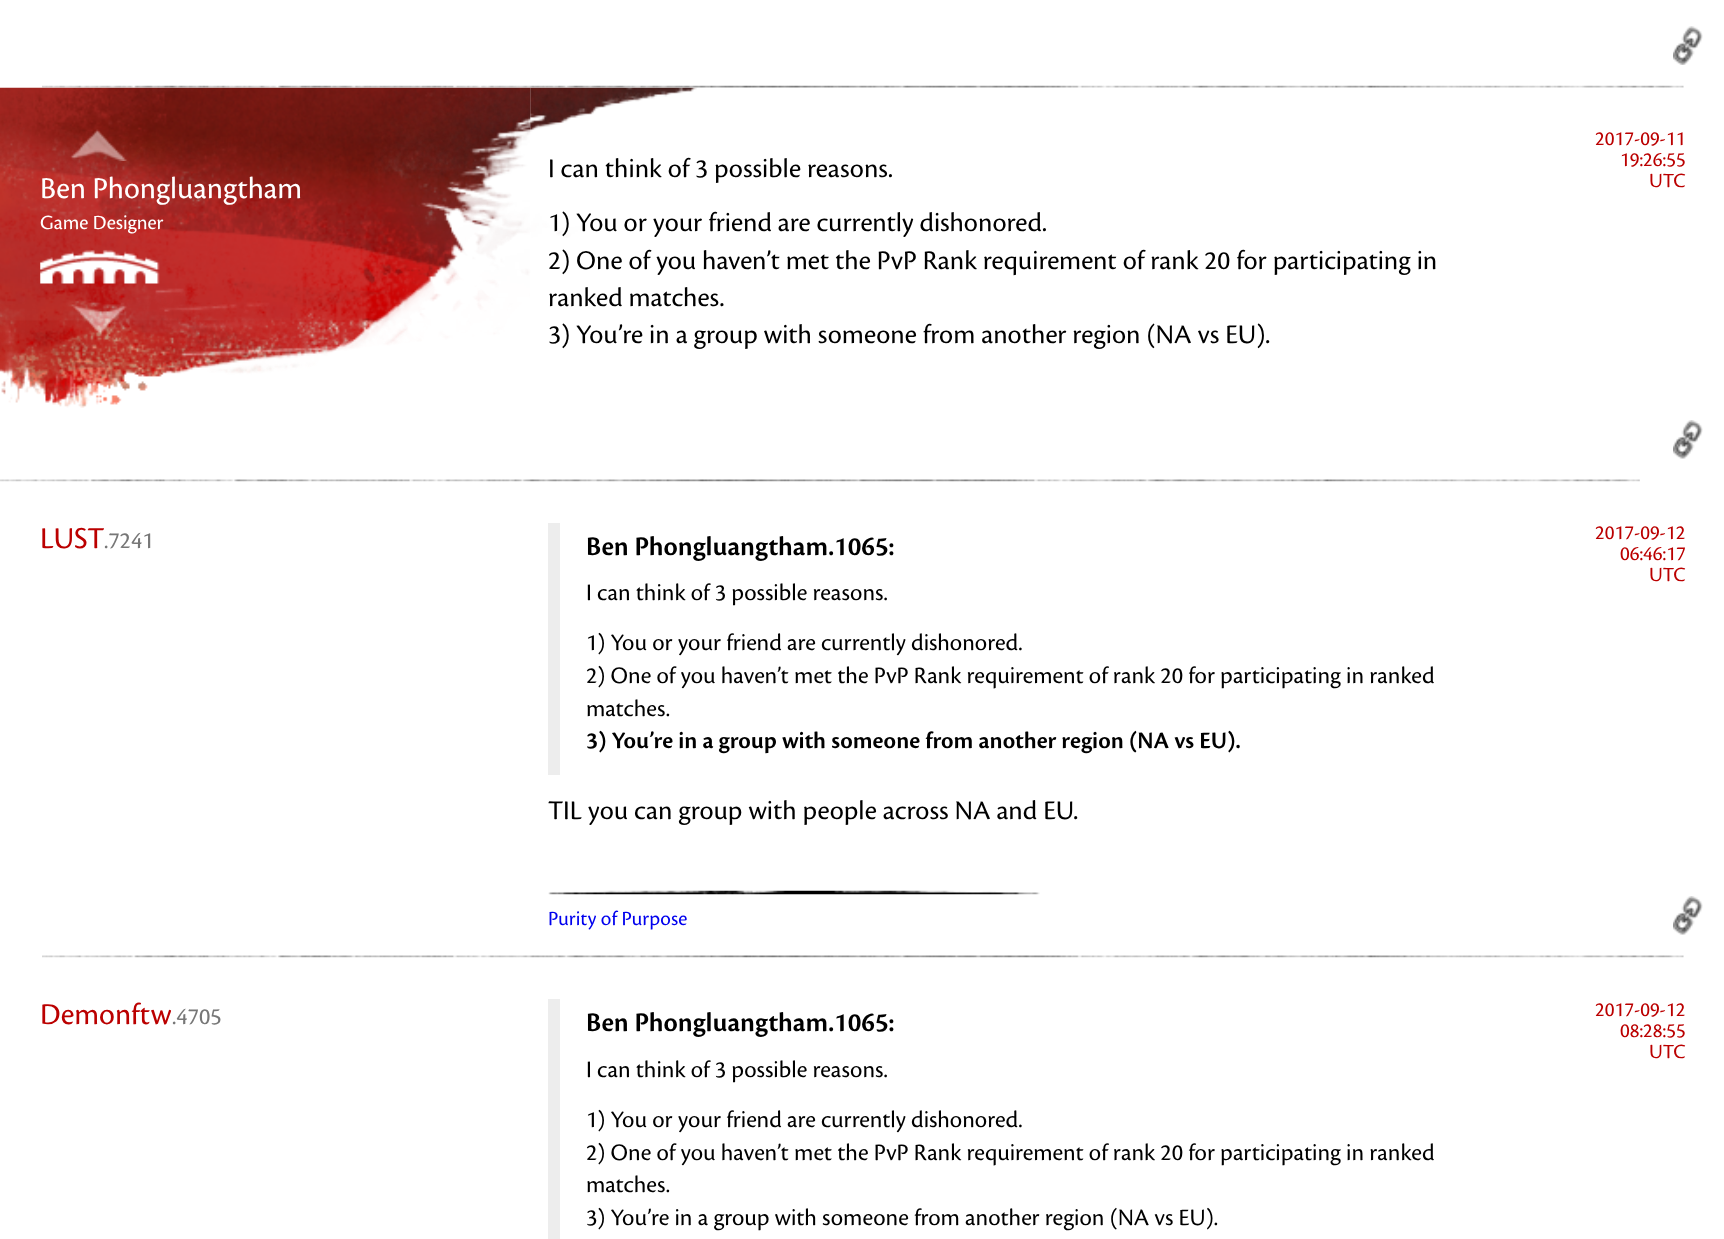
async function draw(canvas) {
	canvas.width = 1724;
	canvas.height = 1239;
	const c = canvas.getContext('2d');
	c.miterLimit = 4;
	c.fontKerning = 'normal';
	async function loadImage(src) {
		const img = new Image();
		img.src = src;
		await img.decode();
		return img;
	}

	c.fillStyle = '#fff';
	c.fillRect(0, 0, 1724, 1239);
	c.drawImage(await loadImage('img1.png'), 42, 85, 1642, 3);
	c.drawImage(await loadImage('img2.png'), 1673, 26, 30, 39);
	c.drawImage(await loadImage('img3.png'), 0, 479, 1640, 3);
	c.drawImage(await loadImage('img4.png'), 0, 87, 531, 321);
	c.drawImage(await loadImage('img5.png'), 70, 129, 57, 32);
	c.font = '31.5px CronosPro';
	c.fillText('Ben Phongluangtham', 40, 198);
	c.font = '21px CronosPro';
	c.fillText('Game Designer', 40, 229);
	c.drawImage(await loadImage('img6.png'), 40, 249, 120, 86);
	c.drawImage(await loadImage('img7.png'), 530, 87, 167, 151);
	c.font = '28px CronosPro';
	c.fillStyle = '#000';
	for (const [text, x, y] of [
		['I can think of 3 possible reasons.', 548, 177],
		['1) You or your friend are currently dishonored.', 548, 231],
		['2) One of you haven’t met the PvP Rank requirement of rank 20 for participating in', 548, 269],
		['ranked matches.', 548, 306],
		['3) You’re in a group with someone from another region (NA vs EU).', 548, 343],
	]) {
		c.fillText(text, x, y);
	}
	c.font = '21px CronosPro';
	c.fillStyle = '#b00';
	for (const [text, x, y] of [
		['2017-09-11', 1595, 145],
		['19:26:55', 1620, 166],
		['UTC', 1649, 187],
	]) {
		c.fillText(text, x, y);
	}
	c.drawImage(await loadImage('img8.png'), 1673, 420, 30, 39);
	c.drawImage(await loadImage('img9.png'), 42, 955, 1642, 3);
	c.font = '31.5px CronosPro';
	c.fillText('LUST', 40, 548);
	c.font = '24.5px CronosPro';
	c.fillStyle = '#777';
	c.fillText('.7241', 104, 548);
	c.fillStyle = '#ededed';
	c.fillRect(548, 523, 12, 252);
	c.font = '600 28px CronosPro';
	c.fillStyle = '#000';
	c.fillText('Ben Phongluangtham.1065:', 586, 555);
	c.font = '24.5px CronosPro';
	for (const [text, x, y] of [
		['I can think of 3 possible reasons.', 586, 600],
		['1) You or your friend are currently dishonored.', 586, 650],
		['2) One of you haven’t met the PvP Rank requirement of rank 20 for participating in ranked', 586, 683],
		['matches.', 586, 716],
	]) {
		c.fillText(text, x, y);
	}
	c.font = '600 24.5px CronosPro';
	c.fillText('3) You’re in a group with someone from another region (NA vs EU).', 586, 748);
	c.font = '28px CronosPro';
	c.fillText('TIL you can group with people across NA and EU.', 548, 819);
	c.drawImage(await loadImage('img10.png'), 548, 890, 492, 5);
	c.font = '21px CronosPro';
	c.fillStyle = '#00e';
	c.fillText('Purity of Purpose', 548, 925);
	c.fillStyle = '#b00';
	for (const [text, x, y] of [
		['2017-09-12', 1595, 539],
		['06:46:17', 1620, 560],
		['UTC', 1649, 581],
	]) {
		c.fillText(text, x, y);
	}
	c.drawImage(await loadImage('img8.png'), 1673, 896, 30, 39);
	c.font = '31.5px CronosPro';
	c.fillText('Demonftw', 40, 1024);
	c.font = '24.5px CronosPro';
	c.fillStyle = '#777';
	c.fillText('.4705', 172, 1024);
	c.fillStyle = '#ededed';
	c.fillRect(548, 999, 12, 240);
	c.font = '600 28px CronosPro';
	c.fillStyle = '#000';
	c.fillText('Ben Phongluangtham.1065:', 586, 1031);
	c.font = '24.5px CronosPro';
	for (const [text, x, y] of [
		['I can think of 3 possible reasons.', 586, 1077],
		['1) You or your friend are currently dishonored.', 586, 1127],
		['2) One of you haven’t met the PvP Rank requirement of rank 20 for participating in ranked', 586, 1160],
		['matches.', 586, 1192],
		['3) You’re in a group with someone from another region (NA vs EU).', 586, 1225],
	]) {
		c.fillText(text, x, y);
	}
	c.font = '21px CronosPro';
	c.fillStyle = '#b00';
	for (const [text, x, y] of [
		['2017-09-12', 1595, 1016],
		['08:28:55', 1620, 1037],
		['UTC', 1649, 1058],
	]) {
		c.fillText(text, x, y);
	}
}

draw(document.querySelector('canvas'));
